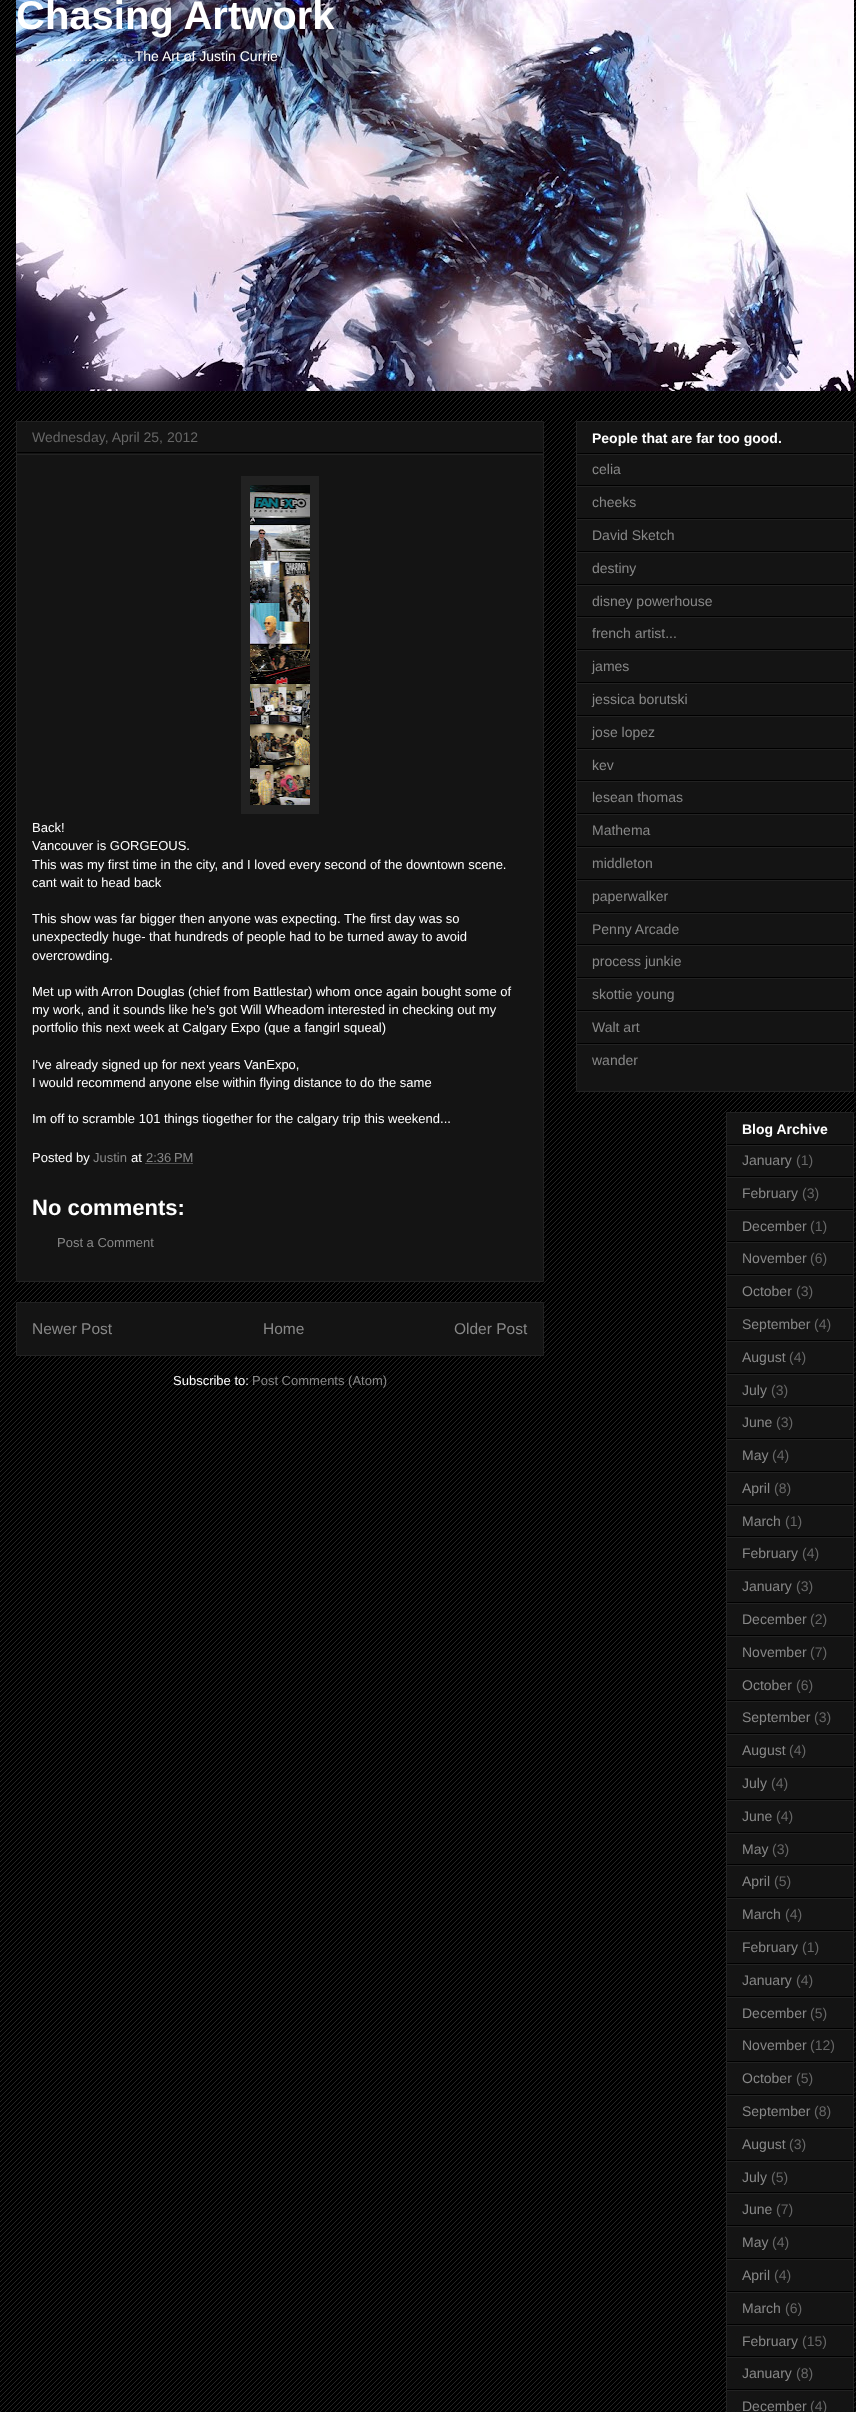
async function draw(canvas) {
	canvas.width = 856;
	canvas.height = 2412;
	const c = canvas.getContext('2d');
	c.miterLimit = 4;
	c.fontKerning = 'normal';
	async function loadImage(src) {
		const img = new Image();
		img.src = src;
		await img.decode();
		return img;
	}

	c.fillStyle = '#000';
	c.fillRect(0, 0, 856, 2412);
	c.drawImage(await loadImage('img1.png'), 0, 0, 856, 2412);
	c.drawImage(await loadImage('img2.png'), 16, 0, 838, 391);
	c.font = 'bold 40px Liberation Sans';
	c.fillStyle = '#fff';
	c.fillText('Chasing Artwork', 16, 29);
	c.font = '14px Liberation Sans';
	c.fillText('..............................The Art of Justin Currie', 18, 61);
	c.fillStyle = '#141414';
	c.beginPath();
	c.rect(16.5, 421.5, 527, 860);
	c.fill();
	c.strokeStyle = '#222';
	c.stroke();
	c.fillStyle = '#000';
	c.fillRect(17, 452, 526, 1);
	c.fillStyle = '#666';
	c.fillText('Wednesday, April 25, 2012', 32, 442);
	c.fillStyle = '#222';
	c.fillRect(17, 454, 526, 1);
	c.fillRect(241, 476, 78, 338);
	c.drawImage(await loadImage('img3.png'), 250, 485, 60, 320);
	c.font = '13px Liberation Sans';
	c.fillStyle = '#fff';
	for (const [text, x, y] of [
		['Back!', 32, 832],
		['Vancouver is GORGEOUS.', 32, 850],
		['This was my first time in the city, and I loved every second of the downtown scene.', 32, 869],
		['cant wait to head back', 32, 887],
		['This show was far bigger then anyone was expecting. The first day was so', 32, 923],
		['unexpectedly huge- that hundreds of people had to be turned away to avoid', 32, 941],
		['overcrowding.', 32, 960],
		['Met up with Arron Douglas (chief from Battlestar) whom once again bought some of', 32, 996],
		['my work, and it sounds like he\'s got Will Wheadom interested in checking out my', 32, 1014],
		['portfolio this next week at Calgary Expo (que a fangirl squeal)', 32, 1032],
		['I\'ve already signed up for next years VanExpo,', 32, 1069],
		['I would recommend anyone else within flying distance to do the same', 32, 1087],
		['Im off to scramble 101 things tiogether for the calgary trip this weekend...', 32, 1123],
		['Posted by', 32, 1162],
	]) {
		c.fillText(text, x, y);
	}
	c.fillStyle = '#888';
	c.fillText('Justin', 93, 1162);
	c.fillStyle = '#fff';
	c.fillText('at', 131, 1162);
	c.fillStyle = '#888';
	c.fillText('2:36 PM', 146, 1162);
	c.beginPath();
	c.moveTo(145.5, 1163.5);
	c.lineTo(193, 1163.5);
	c.strokeStyle = '#888';
	c.setLineDash([1, 1]);
	c.stroke();
	c.font = 'bold 22px Liberation Sans';
	c.fillStyle = '#fff';
	c.fillText('No comments:', 32, 1215);
	c.font = '13px Liberation Sans';
	c.fillStyle = '#888';
	c.fillText('Post a Comment', 57, 1247);
	c.fillStyle = '#141414';
	c.beginPath();
	c.rect(16.5, 1302.5, 527, 53);
	c.fill();
	c.strokeStyle = '#222';
	c.setLineDash([]);
	c.stroke();
	c.font = '15.5px Liberation Sans';
	c.fillStyle = '#888';
	for (const [text, x, y] of [
		['Newer Post', 32, 1334],
		['Home', 263, 1334],
		['Older Post', 454, 1334],
	]) {
		c.fillText(text, x, y);
	}
	c.font = '13px Liberation Sans';
	c.fillStyle = '#fff';
	c.fillText('Subscribe to:', 173, 1385);
	c.fillStyle = '#888';
	c.fillText('Post Comments (Atom)', 252, 1385);
	c.fillStyle = '#141414';
	c.beginPath();
	c.rect(576.5, 421.5, 277, 670);
	c.fill();
	c.stroke();
	c.fillStyle = '#000';
	c.fillRect(577, 453, 276, 1);
	c.font = 'bold 14px Liberation Sans';
	c.fillStyle = '#fff';
	c.fillText('People that are far too good.', 592, 443);
	c.fillStyle = '#222';
	c.fillRect(577, 454, 276, 1);
	c.fillStyle = '#000';
	c.fillRect(577, 485, 276, 1);
	c.font = '14px Liberation Sans';
	c.fillStyle = '#888';
	c.fillText('celia', 592, 474);
	c.fillStyle = '#222';
	c.fillRect(577, 486, 276, 1);
	c.fillStyle = '#000';
	c.fillRect(577, 518, 276, 1);
	c.fillStyle = '#888';
	c.fillText('cheeks', 592, 507);
	c.fillStyle = '#222';
	c.fillRect(577, 519, 276, 1);
	c.fillStyle = '#000';
	c.fillRect(577, 551, 276, 1);
	c.fillStyle = '#888';
	c.fillText('David Sketch', 592, 540);
	c.fillStyle = '#222';
	c.fillRect(577, 552, 276, 1);
	c.fillStyle = '#000';
	c.fillRect(577, 584, 276, 1);
	c.fillStyle = '#888';
	c.fillText('destiny', 592, 573);
	c.fillStyle = '#222';
	c.fillRect(577, 585, 276, 1);
	c.fillStyle = '#000';
	c.fillRect(577, 616, 276, 1);
	c.fillStyle = '#888';
	c.fillText('disney powerhouse', 592, 606);
	c.fillStyle = '#222';
	c.fillRect(577, 617, 276, 1);
	c.fillStyle = '#000';
	c.fillRect(577, 649, 276, 1);
	c.fillStyle = '#888';
	c.fillText('french artist...', 592, 638);
	c.fillStyle = '#222';
	c.fillRect(577, 650, 276, 1);
	c.fillStyle = '#000';
	c.fillRect(577, 682, 276, 1);
	c.fillStyle = '#888';
	c.fillText('james', 592, 671);
	c.fillStyle = '#222';
	c.fillRect(577, 683, 276, 1);
	c.fillStyle = '#000';
	c.fillRect(577, 715, 276, 1);
	c.fillStyle = '#888';
	c.fillText('jessica borutski', 592, 704);
	c.fillStyle = '#222';
	c.fillRect(577, 716, 276, 1);
	c.fillStyle = '#000';
	c.fillRect(577, 748, 276, 1);
	c.fillStyle = '#888';
	c.fillText('jose lopez', 592, 737);
	c.fillStyle = '#222';
	c.fillRect(577, 749, 276, 1);
	c.fillStyle = '#000';
	c.fillRect(577, 780, 276, 1);
	c.fillStyle = '#888';
	c.fillText('kev', 592, 770);
	c.fillStyle = '#222';
	c.fillRect(577, 781, 276, 1);
	c.fillStyle = '#000';
	c.fillRect(577, 813, 276, 1);
	c.fillStyle = '#888';
	c.fillText('lesean thomas', 592, 802);
	c.fillStyle = '#222';
	c.fillRect(577, 814, 276, 1);
	c.fillStyle = '#000';
	c.fillRect(577, 846, 276, 1);
	c.fillStyle = '#888';
	c.fillText('Mathema', 592, 835);
	c.fillStyle = '#222';
	c.fillRect(577, 847, 276, 1);
	c.fillStyle = '#000';
	c.fillRect(577, 879, 276, 1);
	c.fillStyle = '#888';
	c.fillText('middleton', 592, 868);
	c.fillStyle = '#222';
	c.fillRect(577, 880, 276, 1);
	c.fillStyle = '#000';
	c.fillRect(577, 912, 276, 1);
	c.fillStyle = '#888';
	c.fillText('paperwalker', 592, 901);
	c.fillStyle = '#222';
	c.fillRect(577, 913, 276, 1);
	c.fillStyle = '#000';
	c.fillRect(577, 944, 276, 1);
	c.fillStyle = '#888';
	c.fillText('Penny Arcade', 592, 934);
	c.fillStyle = '#222';
	c.fillRect(577, 945, 276, 1);
	c.fillStyle = '#000';
	c.fillRect(577, 977, 276, 1);
	c.fillStyle = '#888';
	c.fillText('process junkie', 592, 966);
	c.fillStyle = '#222';
	c.fillRect(577, 978, 276, 1);
	c.fillStyle = '#000';
	c.fillRect(577, 1010, 276, 1);
	c.fillStyle = '#888';
	c.fillText('skottie young', 592, 999);
	c.fillStyle = '#222';
	c.fillRect(577, 1011, 276, 1);
	c.fillStyle = '#000';
	c.fillRect(577, 1043, 276, 1);
	c.fillStyle = '#888';
	c.fillText('Walt art', 592, 1032);
	c.fillStyle = '#222';
	c.fillRect(577, 1044, 276, 1);
	c.fillStyle = '#888';
	c.fillText('wander', 592, 1065);
	c.fillStyle = '#141414';
	c.beginPath();
	c.rect(726.5, 1112.5, 127, 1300);
	c.fill();
	c.stroke();
	c.fillStyle = '#000';
	c.fillRect(727, 1144, 126, 1);
	c.font = 'bold 14px Liberation Sans';
	c.fillStyle = '#fff';
	c.fillText('Blog Archive', 742, 1134);
	c.fillStyle = '#222';
	c.fillRect(727, 1145, 126, 1);
	c.fillStyle = '#000';
	c.fillRect(727, 1176, 126, 1);
	c.font = '14px Liberation Sans';
	c.fillStyle = '#888';
	c.fillText('January', 742, 1165);
	c.fillStyle = '#666';
	c.fillText('(1)', 796, 1165);
	c.fillStyle = '#222';
	c.fillRect(727, 1177, 126, 1);
	c.fillStyle = '#000';
	c.fillRect(727, 1209, 126, 1);
	c.fillStyle = '#888';
	c.fillText('February', 742, 1198);
	c.fillStyle = '#666';
	c.fillText('(3)', 802, 1198);
	c.fillStyle = '#222';
	c.fillRect(727, 1210, 126, 1);
	c.fillStyle = '#000';
	c.fillRect(727, 1241, 126, 1);
	c.fillStyle = '#888';
	c.fillText('December', 742, 1231);
	c.fillStyle = '#666';
	c.fillText('(1)', 810, 1231);
	c.fillStyle = '#222';
	c.fillRect(727, 1242, 126, 1);
	c.fillStyle = '#000';
	c.fillRect(727, 1274, 126, 1);
	c.fillStyle = '#888';
	c.fillText('November', 742, 1263);
	c.fillStyle = '#666';
	c.fillText('(6)', 810, 1263);
	c.fillStyle = '#222';
	c.fillRect(727, 1275, 126, 1);
	c.fillStyle = '#000';
	c.fillRect(727, 1307, 126, 1);
	c.fillStyle = '#888';
	c.fillText('October', 742, 1296);
	c.fillStyle = '#666';
	c.fillText('(3)', 796, 1296);
	c.fillStyle = '#222';
	c.fillRect(727, 1308, 126, 1);
	c.fillStyle = '#000';
	c.fillRect(727, 1340, 126, 1);
	c.fillStyle = '#888';
	c.fillText('September', 742, 1329);
	c.fillStyle = '#666';
	c.fillText('(4)', 814, 1329);
	c.fillStyle = '#222';
	c.fillRect(727, 1341, 126, 1);
	c.fillStyle = '#000';
	c.fillRect(727, 1373, 126, 1);
	c.fillStyle = '#888';
	c.fillText('August', 742, 1362);
	c.fillStyle = '#666';
	c.fillText('(4)', 789, 1362);
	c.fillStyle = '#222';
	c.fillRect(727, 1374, 126, 1);
	c.fillStyle = '#000';
	c.fillRect(727, 1405, 126, 1);
	c.fillStyle = '#888';
	c.fillText('July', 742, 1395);
	c.fillStyle = '#666';
	c.fillText('(3)', 771, 1395);
	c.fillStyle = '#222';
	c.fillRect(727, 1406, 126, 1);
	c.fillStyle = '#000';
	c.fillRect(727, 1438, 126, 1);
	c.fillStyle = '#888';
	c.fillText('June', 742, 1427);
	c.fillStyle = '#666';
	c.fillText('(3)', 776, 1427);
	c.fillStyle = '#222';
	c.fillRect(727, 1439, 126, 1);
	c.fillStyle = '#000';
	c.fillRect(727, 1471, 126, 1);
	c.fillStyle = '#888';
	c.fillText('May', 742, 1460);
	c.fillStyle = '#666';
	c.fillText('(4)', 772, 1460);
	c.fillStyle = '#222';
	c.fillRect(727, 1472, 126, 1);
	c.fillStyle = '#000';
	c.fillRect(727, 1504, 126, 1);
	c.fillStyle = '#888';
	c.fillText('April', 742, 1493);
	c.fillStyle = '#666';
	c.fillText('(8)', 774, 1493);
	c.fillStyle = '#222';
	c.fillRect(727, 1505, 126, 1);
	c.fillStyle = '#000';
	c.fillRect(727, 1536, 126, 1);
	c.fillStyle = '#888';
	c.fillText('March', 742, 1526);
	c.fillStyle = '#666';
	c.fillText('(1)', 785, 1526);
	c.fillStyle = '#222';
	c.fillRect(727, 1537, 126, 1);
	c.fillStyle = '#000';
	c.fillRect(727, 1569, 126, 1);
	c.fillStyle = '#888';
	c.fillText('February', 742, 1558);
	c.fillStyle = '#666';
	c.fillText('(4)', 802, 1558);
	c.fillStyle = '#222';
	c.fillRect(727, 1570, 126, 1);
	c.fillStyle = '#000';
	c.fillRect(727, 1602, 126, 1);
	c.fillStyle = '#888';
	c.fillText('January', 742, 1591);
	c.fillStyle = '#666';
	c.fillText('(3)', 796, 1591);
	c.fillStyle = '#222';
	c.fillRect(727, 1603, 126, 1);
	c.fillStyle = '#000';
	c.fillRect(727, 1635, 126, 1);
	c.fillStyle = '#888';
	c.fillText('December', 742, 1624);
	c.fillStyle = '#666';
	c.fillText('(2)', 810, 1624);
	c.fillStyle = '#222';
	c.fillRect(727, 1636, 126, 1);
	c.fillStyle = '#000';
	c.fillRect(727, 1668, 126, 1);
	c.fillStyle = '#888';
	c.fillText('November', 742, 1657);
	c.fillStyle = '#666';
	c.fillText('(7)', 810, 1657);
	c.fillStyle = '#222';
	c.fillRect(727, 1669, 126, 1);
	c.fillStyle = '#000';
	c.fillRect(727, 1700, 126, 1);
	c.fillStyle = '#888';
	c.fillText('October', 742, 1690);
	c.fillStyle = '#666';
	c.fillText('(6)', 796, 1690);
	c.fillStyle = '#222';
	c.fillRect(727, 1701, 126, 1);
	c.fillStyle = '#000';
	c.fillRect(727, 1733, 126, 1);
	c.fillStyle = '#888';
	c.fillText('September', 742, 1722);
	c.fillStyle = '#666';
	c.fillText('(3)', 814, 1722);
	c.fillStyle = '#222';
	c.fillRect(727, 1734, 126, 1);
	c.fillStyle = '#000';
	c.fillRect(727, 1766, 126, 1);
	c.fillStyle = '#888';
	c.fillText('August', 742, 1755);
	c.fillStyle = '#666';
	c.fillText('(4)', 789, 1755);
	c.fillStyle = '#222';
	c.fillRect(727, 1767, 126, 1);
	c.fillStyle = '#000';
	c.fillRect(727, 1799, 126, 1);
	c.fillStyle = '#888';
	c.fillText('July', 742, 1788);
	c.fillStyle = '#666';
	c.fillText('(4)', 771, 1788);
	c.fillStyle = '#222';
	c.fillRect(727, 1800, 126, 1);
	c.fillStyle = '#000';
	c.fillRect(727, 1832, 126, 1);
	c.fillStyle = '#888';
	c.fillText('June', 742, 1821);
	c.fillStyle = '#666';
	c.fillText('(4)', 776, 1821);
	c.fillStyle = '#222';
	c.fillRect(727, 1833, 126, 1);
	c.fillStyle = '#000';
	c.fillRect(727, 1864, 126, 1);
	c.fillStyle = '#888';
	c.fillText('May', 742, 1854);
	c.fillStyle = '#666';
	c.fillText('(3)', 772, 1854);
	c.fillStyle = '#222';
	c.fillRect(727, 1865, 126, 1);
	c.fillStyle = '#000';
	c.fillRect(727, 1897, 126, 1);
	c.fillStyle = '#888';
	c.fillText('April', 742, 1886);
	c.fillStyle = '#666';
	c.fillText('(5)', 774, 1886);
	c.fillStyle = '#222';
	c.fillRect(727, 1898, 126, 1);
	c.fillStyle = '#000';
	c.fillRect(727, 1930, 126, 1);
	c.fillStyle = '#888';
	c.fillText('March', 742, 1919);
	c.fillStyle = '#666';
	c.fillText('(4)', 785, 1919);
	c.fillStyle = '#222';
	c.fillRect(727, 1931, 126, 1);
	c.fillStyle = '#000';
	c.fillRect(727, 1963, 126, 1);
	c.fillStyle = '#888';
	c.fillText('February', 742, 1952);
	c.fillStyle = '#666';
	c.fillText('(1)', 802, 1952);
	c.fillStyle = '#222';
	c.fillRect(727, 1964, 126, 1);
	c.fillStyle = '#000';
	c.fillRect(727, 1996, 126, 1);
	c.fillStyle = '#888';
	c.fillText('January', 742, 1985);
	c.fillStyle = '#666';
	c.fillText('(4)', 796, 1985);
	c.fillStyle = '#222';
	c.fillRect(727, 1997, 126, 1);
	c.fillStyle = '#000';
	c.fillRect(727, 2028, 126, 1);
	c.fillStyle = '#888';
	c.fillText('December', 742, 2018);
	c.fillStyle = '#666';
	c.fillText('(5)', 810, 2018);
	c.fillStyle = '#222';
	c.fillRect(727, 2029, 126, 1);
	c.fillStyle = '#000';
	c.fillRect(727, 2061, 126, 1);
	c.fillStyle = '#888';
	c.fillText('November', 742, 2050);
	c.fillStyle = '#666';
	c.fillText('(12)', 810, 2050);
	c.fillStyle = '#222';
	c.fillRect(727, 2062, 126, 1);
	c.fillStyle = '#000';
	c.fillRect(727, 2094, 126, 1);
	c.fillStyle = '#888';
	c.fillText('October', 742, 2083);
	c.fillStyle = '#666';
	c.fillText('(5)', 796, 2083);
	c.fillStyle = '#222';
	c.fillRect(727, 2095, 126, 1);
	c.fillStyle = '#000';
	c.fillRect(727, 2127, 126, 1);
	c.fillStyle = '#888';
	c.fillText('September', 742, 2116);
	c.fillStyle = '#666';
	c.fillText('(8)', 814, 2116);
	c.fillStyle = '#222';
	c.fillRect(727, 2128, 126, 1);
	c.fillStyle = '#000';
	c.fillRect(727, 2160, 126, 1);
	c.fillStyle = '#888';
	c.fillText('August', 742, 2149);
	c.fillStyle = '#666';
	c.fillText('(3)', 789, 2149);
	c.fillStyle = '#222';
	c.fillRect(727, 2161, 126, 1);
	c.fillStyle = '#000';
	c.fillRect(727, 2192, 126, 1);
	c.fillStyle = '#888';
	c.fillText('July', 742, 2182);
	c.fillStyle = '#666';
	c.fillText('(5)', 771, 2182);
	c.fillStyle = '#222';
	c.fillRect(727, 2193, 126, 1);
	c.fillStyle = '#000';
	c.fillRect(727, 2225, 126, 1);
	c.fillStyle = '#888';
	c.fillText('June', 742, 2214);
	c.fillStyle = '#666';
	c.fillText('(7)', 776, 2214);
	c.fillStyle = '#222';
	c.fillRect(727, 2226, 126, 1);
	c.fillStyle = '#000';
	c.fillRect(727, 2258, 126, 1);
	c.fillStyle = '#888';
	c.fillText('May', 742, 2247);
	c.fillStyle = '#666';
	c.fillText('(4)', 772, 2247);
	c.fillStyle = '#222';
	c.fillRect(727, 2259, 126, 1);
	c.fillStyle = '#000';
	c.fillRect(727, 2291, 126, 1);
	c.fillStyle = '#888';
	c.fillText('April', 742, 2280);
	c.fillStyle = '#666';
	c.fillText('(4)', 774, 2280);
	c.fillStyle = '#222';
	c.fillRect(727, 2292, 126, 1);
	c.fillStyle = '#000';
	c.fillRect(727, 2324, 126, 1);
	c.fillStyle = '#888';
	c.fillText('March', 742, 2313);
	c.fillStyle = '#666';
	c.fillText('(6)', 785, 2313);
	c.fillStyle = '#222';
	c.fillRect(727, 2325, 126, 1);
	c.fillStyle = '#000';
	c.fillRect(727, 2356, 126, 1);
	c.fillStyle = '#888';
	c.fillText('February', 742, 2346);
	c.fillStyle = '#666';
	c.fillText('(15)', 802, 2346);
	c.fillStyle = '#222';
	c.fillRect(727, 2357, 126, 1);
	c.fillStyle = '#000';
	c.fillRect(727, 2389, 126, 1);
	c.fillStyle = '#888';
	c.fillText('January', 742, 2378);
	c.fillStyle = '#666';
	c.fillText('(8)', 796, 2378);
	c.fillStyle = '#222';
	c.fillRect(727, 2390, 126, 1);
	c.fillStyle = '#888';
	c.fillText('December', 742, 2411);
	c.fillStyle = '#666';
	c.fillText('(4)', 810, 2411);
}

draw(document.querySelector('canvas'));
